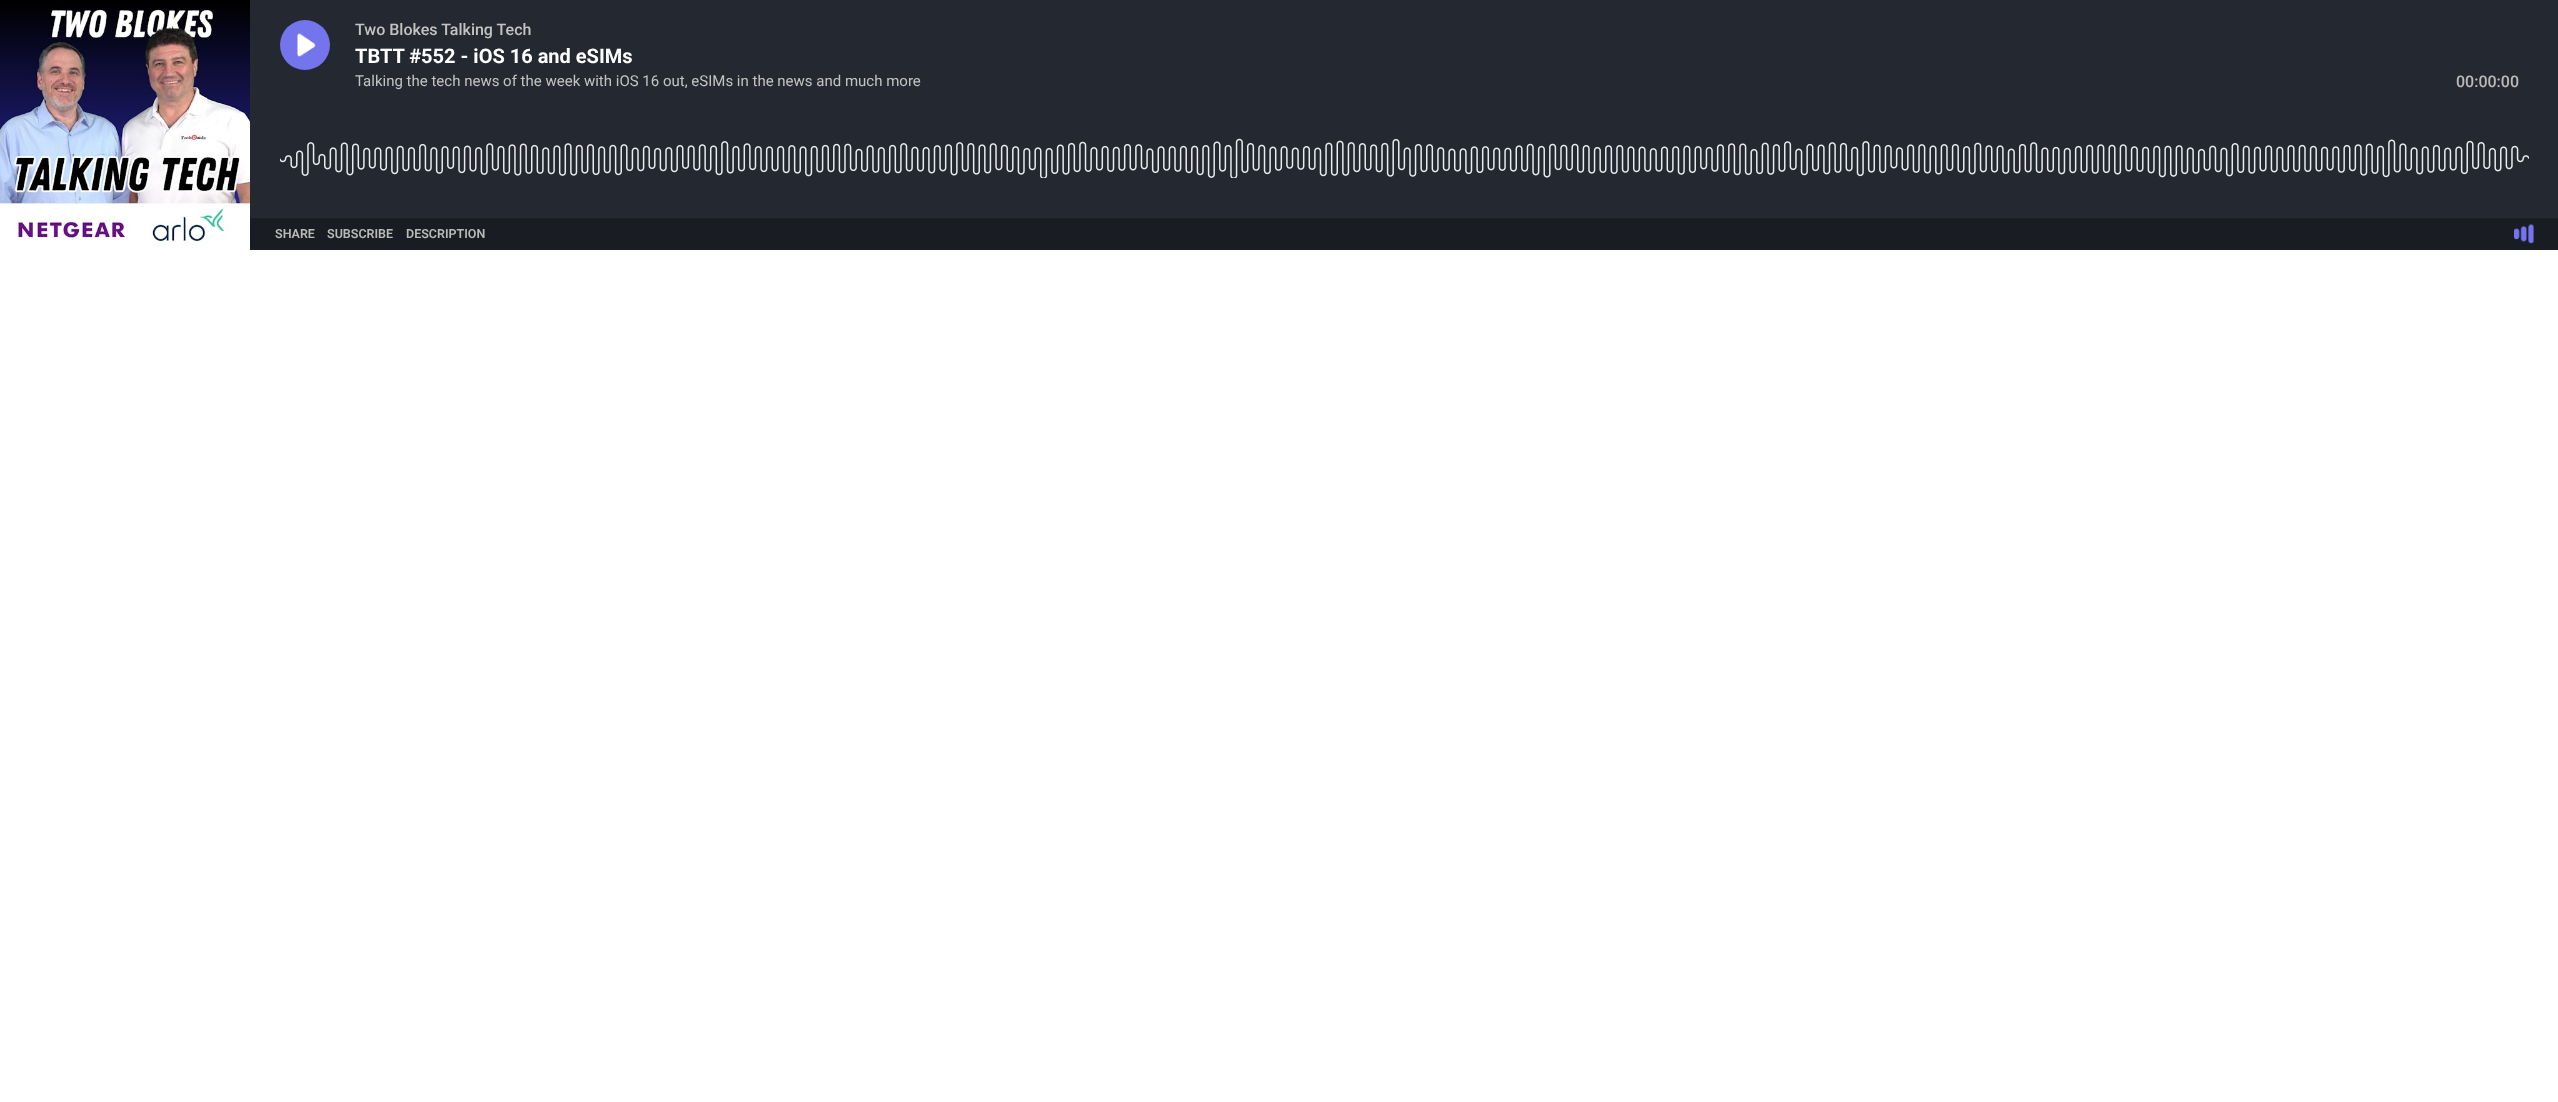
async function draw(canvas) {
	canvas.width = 2558;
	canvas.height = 1102;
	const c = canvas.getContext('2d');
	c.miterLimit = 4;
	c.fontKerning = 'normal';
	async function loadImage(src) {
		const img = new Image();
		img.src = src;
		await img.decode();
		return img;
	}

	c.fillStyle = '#fff';
	c.fillRect(0, 0, 2558, 1102);
	c.drawImage(await loadImage('img1.png'), 0, 0, 250, 250);
	c.fillStyle = '#232831';
	c.fillRect(250, 0, 2308, 218);
	c.fillStyle = '#7474ec';
	c.beginPath();
	c.arc(305, 45, 25, 0, 2 * Math.PI);
	c.fill();
	c.drawImage(await loadImage('img2.png'), 297, 33, 19, 24);
	c.font = '500 16px Roboto';
	c.fillStyle = '#c3c3c3';
	c.fillText('Two Blokes Talking Tech', 355, 35);
	c.font = 'bold 20px Roboto';
	c.fillStyle = '#fff';
	c.fillText('TBTT #552 - iOS 16 and eSIMs', 355, 63);
	c.font = '15px Roboto';
	c.fillStyle = '#c3c3c3';
	c.fillText('Talking the tech news of the week with iOS 16 out, eSIMs in the news and much more', 355, 86);
	c.font = '500 16px Roboto';
	c.fillStyle = '#bababa';
	c.fillText('00:00:00', 2456, 87);
	c.drawImage(await loadImage('img3.png'), 280, 138, 2249, 40);
	c.fillStyle = '#191d23';
	c.fillRect(250, 218, 2308, 32);
	c.font = '600 12.5px Roboto';
	c.fillStyle = '#bababa';
	for (const [text, x, y] of [
		['SHARE', 275, 238],
		['SUBSCRIBE', 327, 238],
		['DESCRIPTION', 406, 238],
	]) {
		c.fillText(text, x, y);
	}
	c.drawImage(await loadImage('img4.png'), 2514, 224, 20, 20);
}

draw(document.querySelector('canvas'));
